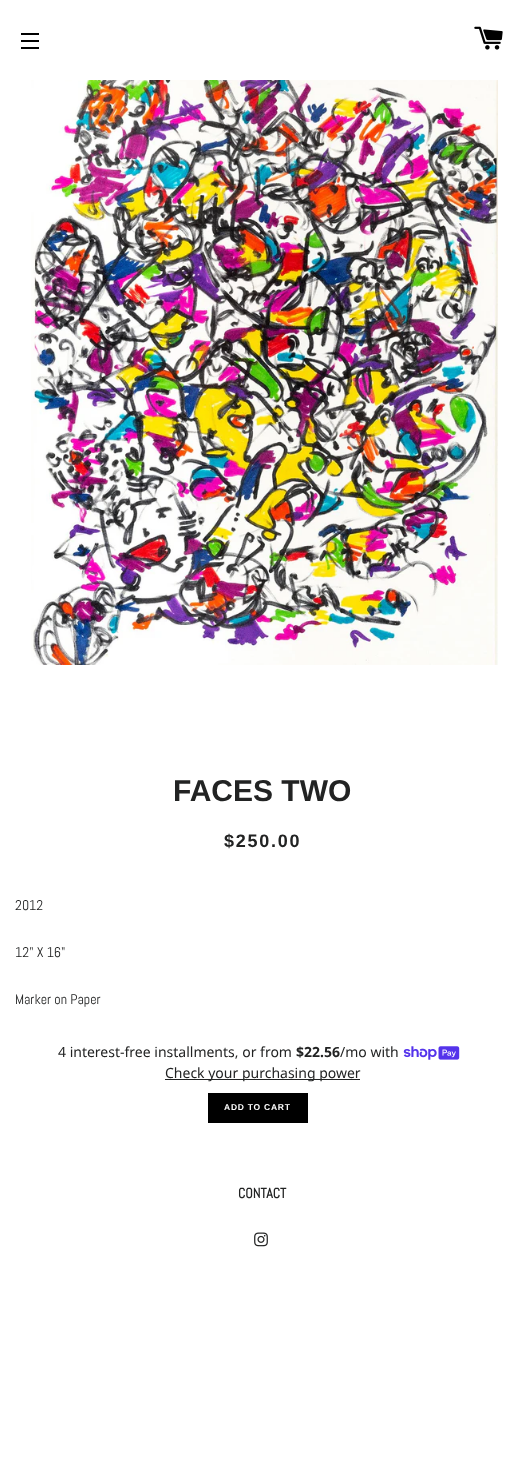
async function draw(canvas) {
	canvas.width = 525;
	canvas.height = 1463;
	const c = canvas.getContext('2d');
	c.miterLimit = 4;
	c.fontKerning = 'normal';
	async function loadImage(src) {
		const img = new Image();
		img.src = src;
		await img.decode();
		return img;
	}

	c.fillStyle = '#fff';
	c.fillRect(0, 0, 525, 1463);
	for (const [x, y, w, h, color] of [
		[21, 33, 18, 2, '#000'],
		[21, 40, 18, 2, '#000'],
		[21, 47, 18, 2, '#000'],
	]) {
		c.fillStyle = color;
		c.fillRect(x, y, w, h);
	}
	c.drawImage(await loadImage('img1.png'), 474, 26, 29, 24);
	c.drawImage(await loadImage('img2.png'), 31, 80, 467, 585);
	c.font = 'bold 30px Liberation Sans';
	c.fillStyle = '#222323';
	c.fillText('FACES TWO', 173, 801);
	c.letterSpacing = '1.75px';
	c.font = 'bold 18px Liberation Sans';
	c.fillText('$250.00', 224, 847);
	c.letterSpacing = '0px';
	c.font = '14px Abel';
	for (const [text, x, y] of [
		['2012', 15, 910],
		['12" X 16"', 15, 957],
		['Marker on Paper', 15, 1004],
	]) {
		c.fillText(text, x, y);
	}
	c.font = '14px Noto Sans';
	c.fillText('4 interest-free installments, or from', 58, 1057);
	c.font = 'bold 14px Noto Sans';
	c.fillText('$22.56', 296, 1057);
	c.font = '14px Noto Sans';
	c.fillText('/mo with', 340, 1057);
	c.drawImage(await loadImage('img3.png'), 403, 1046, 57, 14);
	c.fillRect(165, 1079, 195, 1);
	c.fillText('Check your purchasing power', 165, 1078);
	c.fillStyle = '#000';
	c.fillRect(208, 1093, 100, 30);
	c.letterSpacing = '0.75px';
	c.font = 'bold 8.5px Liberation Sans';
	c.fillStyle = '#fff';
	c.fillText('ADD TO CART', 224, 1110);
	c.letterSpacing = '0px';
	c.font = 'bold 14px Abel';
	c.fillStyle = '#222323';
	c.fillText('CONTACT', 238, 1198);
	c.drawImage(await loadImage('img4.png'), 254, 1232, 14, 15);
}

draw(document.querySelector('canvas'));
